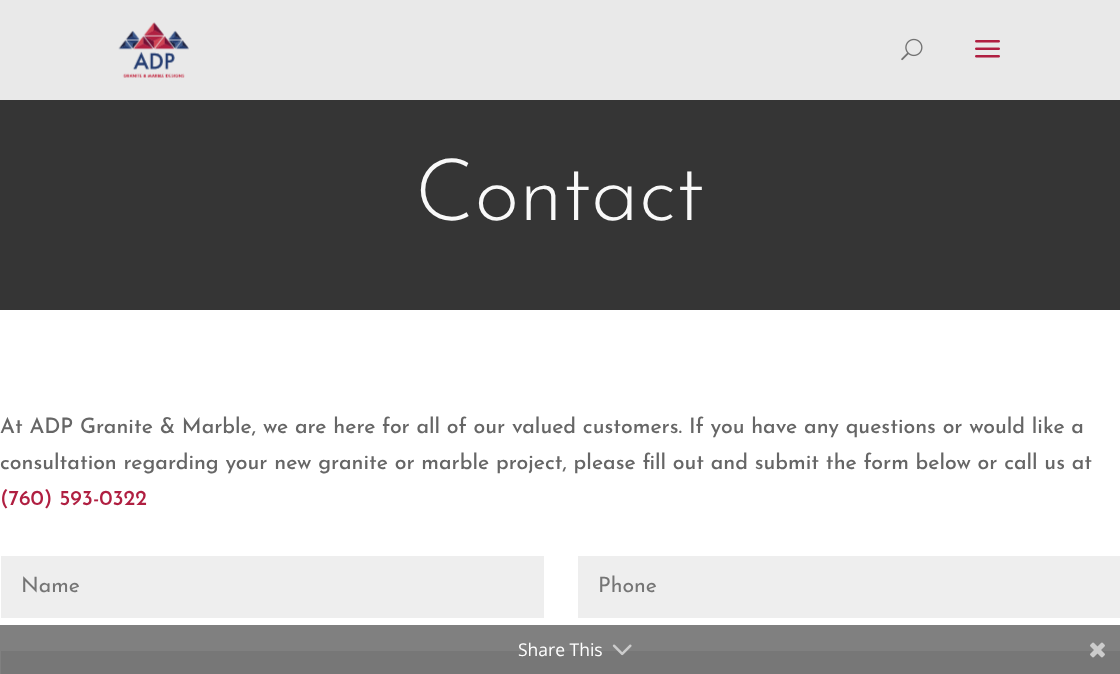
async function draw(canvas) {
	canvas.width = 1120;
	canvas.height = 674;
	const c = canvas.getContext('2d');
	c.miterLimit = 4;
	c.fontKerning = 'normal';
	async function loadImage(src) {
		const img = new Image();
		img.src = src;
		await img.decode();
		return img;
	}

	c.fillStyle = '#fff';
	c.fillRect(0, 0, 1120, 674);
	c.fillStyle = '#808080';
	c.fillRect(0, 625, 1120, 49);
	c.fillStyle = '#e9e9e9';
	c.fillRect(0, 0, 1120, 100);
	c.drawImage(await loadImage('img1.png'), 118, 22, 71, 56);
	c.drawImage(await loadImage('img2.png'), 901, 38, 22, 23);
	c.drawImage(await loadImage('img3.png'), 975, 40, 25, 18);
	c.fillStyle = '#353535';
	c.fillRect(0, 100, 1120, 210);
	c.font = '300 86px Josefin Sans';
	c.fillStyle = '#f9f9f9';
	c.fillText('Contact', 415, 220);
	c.font = '500 21.25px Josefin Sans';
	c.fillStyle = '#666';
	c.fillText('At ADP Granite & Marble, we are here for all of our valued customers. If you have any questions or would like a', 0, 433);
	c.fillText('consultation regarding your new granite or marble project, please fill out and submit the form below or call us at', 0, 469);
	c.fillStyle = '#b01f41';
	c.fillText('(760) 593-0322', 0, 505);
	c.fillStyle = '#eee';
	c.fillRect(1, 556, 543, 62);
	c.font = '21.25px Josefin Sans';
	c.fillStyle = '#757575';
	c.fillText('Name', 21, 592);
	c.fillStyle = '#eee';
	c.fillRect(578, 556, 542, 62);
	c.fillStyle = '#757575';
	c.fillText('Phone', 598, 592);
	c.fillStyle = '#777';
	c.fillRect(1, 651, 1119, 23);
	c.font = '17.5px Open Sans';
	c.fillStyle = '#fff';
	c.fillText('Share This', 518, 656);
	c.drawImage(await loadImage('img4.png'), 612, 644, 20, 12);
	c.drawImage(await loadImage('img5.png'), 1090, 642, 15, 16);
}

draw(document.querySelector('canvas'));
